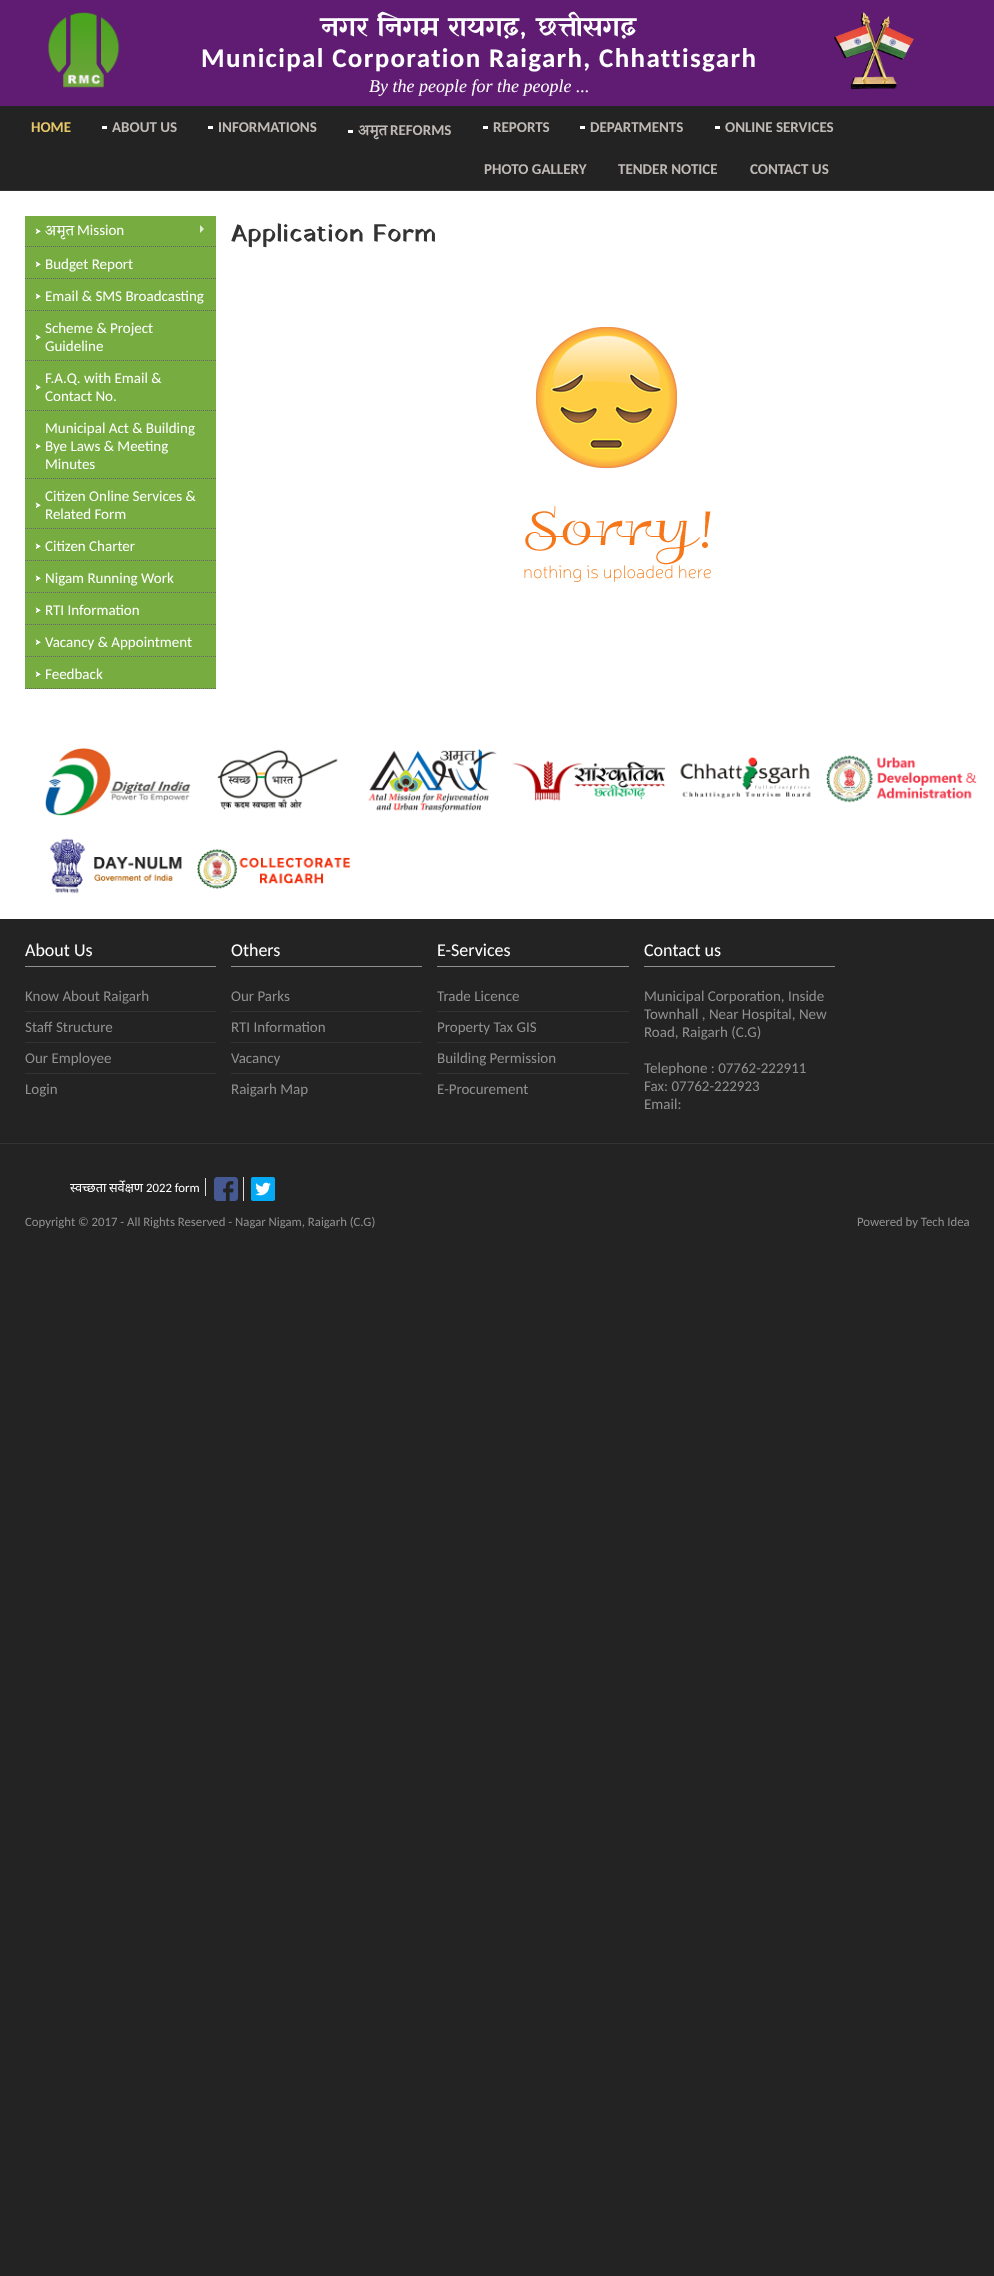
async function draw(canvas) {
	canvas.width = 994;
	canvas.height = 2276;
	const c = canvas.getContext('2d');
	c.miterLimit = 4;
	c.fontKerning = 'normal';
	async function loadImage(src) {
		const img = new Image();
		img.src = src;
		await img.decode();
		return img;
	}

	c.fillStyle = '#232323';
	c.fillRect(0, 0, 994, 2276);
	c.fillStyle = '#5f1c72';
	c.fillRect(0, 0, 994, 106);
	c.drawImage(await loadImage('img1.png'), 47, 12, 73, 76);
	c.font = '27px Yatra One';
	c.fillStyle = '#fff';
	c.fillText('नगर निगम रायगढ़, छत्तीसगढ़', 321, 35);
	c.letterSpacing = '1.35px';
	c.font = 'bold 27px Carlito';
	c.fillText('Municipal Corporation Raigarh, Chhattisgarh', 201, 67);
	c.letterSpacing = '0px';
	c.font = 'italic 18px Liberation Serif';
	c.fillText('By the people for the people ...', 369, 92);
	c.drawImage(await loadImage('img2.png'), 834, 12, 80, 78);
	c.fillStyle = '#333';
	c.fillRect(0, 190, 994, 1);
	c.font = 'bold 15px Carlito';
	c.fillStyle = '#e5c668';
	c.fillText('HOME', 31, 132);
	c.fillStyle = '#fff';
	c.fillRect(102, 126, 5, 3);
	c.fillStyle = '#c0bab6';
	c.fillText('ABOUT US', 112, 132);
	c.fillStyle = '#fff';
	c.fillRect(208, 126, 5, 3);
	c.fillStyle = '#c0bab6';
	c.fillText('INFORMATIONS', 218, 132);
	c.fillStyle = '#fff';
	c.fillRect(348, 130, 5, 3);
	c.font = 'bold 15px Eczar';
	c.fillStyle = '#c0bab6';
	c.fillText('अमृत', 358, 135);
	c.font = 'bold 15px Carlito';
	c.fillText('REFORMS', 390, 135);
	c.fillStyle = '#fff';
	c.fillRect(483, 126, 5, 3);
	c.fillStyle = '#c0bab6';
	c.fillText('REPORTS', 493, 132);
	c.fillStyle = '#fff';
	c.fillRect(580, 126, 5, 3);
	c.fillStyle = '#c0bab6';
	c.fillText('DEPARTMENTS', 590, 132);
	c.fillStyle = '#fff';
	c.fillRect(715, 126, 5, 3);
	c.fillStyle = '#c0bab6';
	for (const [text, x, y] of [
		['ONLINE SERVICES', 725, 132],
		['PHOTO GALLERY', 484, 174],
		['TENDER NOTICE', 618, 174],
		['CONTACT US', 750, 174],
	]) {
		c.fillText(text, x, y);
	}
	c.fillStyle = '#fff';
	c.fillRect(0, 191, 994, 728);
	c.fillStyle = '#76ac40';
	c.fillRect(25, 216, 191, 473);
	c.drawImage(await loadImage('img3.png'), 35, 228, 6, 6);
	c.beginPath();
	c.moveTo(25, 246.5);
	c.lineTo(216, 246.5);
	c.strokeStyle = '#666';
	c.setLineDash([1, 1]);
	c.stroke();
	c.font = '15px Eczar';
	c.fillStyle = '#fff';
	c.fillText('अमृत', 45, 235);
	c.font = '15px Carlito';
	c.fillText('Mission', 77, 235);
	c.drawImage(await loadImage('img4.png'), 200, 225, 4, 8);
	c.drawImage(await loadImage('img3.png'), 35, 261, 6, 6);
	c.beginPath();
	c.moveTo(25, 278.5);
	c.lineTo(216, 278.5);
	c.stroke();
	c.fillText('Budget Report', 45, 269);
	c.drawImage(await loadImage('img3.png'), 35, 293, 6, 6);
	c.beginPath();
	c.moveTo(25, 310.5);
	c.lineTo(216, 310.5);
	c.stroke();
	c.fillText('Email & SMS Broadcasting', 45, 301);
	c.drawImage(await loadImage('img3.png'), 35, 334, 6, 6);
	c.beginPath();
	c.moveTo(25, 360.5);
	c.lineTo(216, 360.5);
	c.stroke();
	c.fillText('Scheme & Project', 45, 333);
	c.fillText('Guideline', 45, 351);
	c.drawImage(await loadImage('img3.png'), 35, 384, 6, 6);
	c.beginPath();
	c.moveTo(25, 410.5);
	c.lineTo(216, 410.5);
	c.stroke();
	c.fillText('F.A.Q. with Email &', 45, 383);
	c.fillText('Contact No.', 45, 401);
	c.drawImage(await loadImage('img3.png'), 35, 443, 6, 6);
	c.beginPath();
	c.moveTo(25, 478.5);
	c.lineTo(216, 478.5);
	c.stroke();
	for (const [text, x, y] of [
		['Municipal Act & Building', 45, 433],
		['Bye Laws & Meeting', 45, 451],
		['Minutes', 45, 469],
	]) {
		c.fillText(text, x, y);
	}
	c.drawImage(await loadImage('img3.png'), 35, 502, 6, 6);
	c.beginPath();
	c.moveTo(25, 528.5);
	c.lineTo(216, 528.5);
	c.stroke();
	c.fillText('Citizen Online Services &', 45, 501);
	c.fillText('Related Form', 45, 519);
	c.drawImage(await loadImage('img3.png'), 35, 543, 6, 6);
	c.beginPath();
	c.moveTo(25, 560.5);
	c.lineTo(216, 560.5);
	c.stroke();
	c.fillText('Citizen Charter', 45, 551);
	c.drawImage(await loadImage('img3.png'), 35, 575, 6, 6);
	c.beginPath();
	c.moveTo(25, 592.5);
	c.lineTo(216, 592.5);
	c.stroke();
	c.fillText('Nigam Running Work', 45, 583);
	c.drawImage(await loadImage('img3.png'), 35, 607, 6, 6);
	c.beginPath();
	c.moveTo(25, 624.5);
	c.lineTo(216, 624.5);
	c.stroke();
	c.fillText('RTI Information', 45, 615);
	c.drawImage(await loadImage('img3.png'), 35, 639, 6, 6);
	c.beginPath();
	c.moveTo(25, 656.5);
	c.lineTo(216, 656.5);
	c.stroke();
	c.fillText('Vacancy & Appointment', 45, 647);
	c.drawImage(await loadImage('img3.png'), 35, 671, 6, 6);
	c.beginPath();
	c.moveTo(25, 688.5);
	c.lineTo(216, 688.5);
	c.stroke();
	c.fillText('Feedback', 45, 679);
	c.font = '25px Yatra One';
	c.fillStyle = '#333';
	c.fillText('Application Form', 231, 241);
	c.drawImage(await loadImage('img5.png'), 524, 327, 187, 255);
	c.drawImage(await loadImage('img6.png'), 45, 747, 146, 69);
	c.drawImage(await loadImage('img7.png'), 217, 749, 121, 61);
	c.drawImage(await loadImage('img8.png'), 368, 748, 129, 65);
	c.drawImage(await loadImage('img9.png'), 512, 760, 154, 41);
	c.drawImage(await loadImage('img10.png'), 680, 757, 131, 42);
	c.drawImage(await loadImage('img11.png'), 826, 755, 151, 48);
	c.drawImage(await loadImage('img12.png'), 49, 838, 133, 56);
	c.drawImage(await loadImage('img13.png'), 197, 849, 154, 40);
	c.fillRect(0, 1143, 994, 1);
	c.fillStyle = '#919191';
	c.fillRect(25, 966, 191, 1);
	c.font = '18px Carlito';
	c.fillStyle = '#fff';
	c.fillText('About Us', 25, 956);
	c.font = '15px Carlito';
	c.fillStyle = '#919191';
	c.fillText('Know About Raigarh', 25, 1001);
	c.fillStyle = '#333';
	c.fillRect(25, 1011, 191, 1);
	c.fillStyle = '#919191';
	c.fillText('Staff Structure', 25, 1032);
	c.fillStyle = '#333';
	c.fillRect(25, 1042, 191, 1);
	c.fillStyle = '#919191';
	c.fillText('Our Employee', 25, 1063);
	c.fillStyle = '#333';
	c.fillRect(25, 1073, 191, 1);
	c.fillStyle = '#919191';
	c.fillText('Login', 25, 1094);
	c.fillRect(231, 966, 191, 1);
	c.font = '18px Carlito';
	c.fillStyle = '#fff';
	c.fillText('Others', 231, 956);
	c.font = '15px Carlito';
	c.fillStyle = '#919191';
	c.fillText('Our Parks', 231, 1001);
	c.fillStyle = '#333';
	c.fillRect(231, 1011, 191, 1);
	c.fillStyle = '#919191';
	c.fillText('RTI Information', 231, 1032);
	c.fillStyle = '#333';
	c.fillRect(231, 1042, 191, 1);
	c.fillStyle = '#919191';
	c.fillText('Vacancy', 231, 1063);
	c.fillStyle = '#333';
	c.fillRect(231, 1073, 191, 1);
	c.fillStyle = '#919191';
	c.fillText('Raigarh Map', 231, 1094);
	c.fillRect(437, 966, 192, 1);
	c.font = '18px Carlito';
	c.fillStyle = '#fff';
	c.fillText('E-Services', 437, 956);
	c.font = '15px Carlito';
	c.fillStyle = '#919191';
	c.fillText('Trade Licence', 437, 1001);
	c.fillStyle = '#333';
	c.fillRect(437, 1011, 192, 1);
	c.fillStyle = '#919191';
	c.fillText('Property Tax GIS', 437, 1032);
	c.fillStyle = '#333';
	c.fillRect(437, 1042, 192, 1);
	c.fillStyle = '#919191';
	c.fillText('Building Permission', 437, 1063);
	c.fillStyle = '#333';
	c.fillRect(437, 1073, 192, 1);
	c.fillStyle = '#919191';
	c.fillText('E-Procurement', 437, 1094);
	c.fillRect(644, 966, 191, 1);
	c.font = '18px Carlito';
	c.fillStyle = '#fff';
	c.fillText('Contact us', 644, 956);
	c.font = '15px Carlito';
	c.fillStyle = '#919191';
	for (const [text, x, y] of [
		['Municipal Corporation, Inside', 644, 1001],
		['Townhall , Near Hospital, New', 644, 1019],
		['Road, Raigarh (C.G)', 644, 1037],
		['Telephone : 07762-222911', 644, 1073],
		['Fax: 07762-222923', 644, 1091],
		['Email:', 644, 1109],
	]) {
		c.fillText(text, x, y);
	}
	c.fillStyle = '#ddd';
	c.fillRect(205, 1178, 1, 18);
	c.font = '12.75px Noto Sans';
	c.fillStyle = '#fff';
	c.fillText('स्वच्छता', 70, 1192);
	c.fillText('सर्वेक्षण', 109, 1192);
	c.font = '12.75px Carlito';
	c.fillText('2022 form', 146, 1192);
	c.fillStyle = '#ddd';
	c.fillRect(243, 1177, 1, 24);
	c.drawImage(await loadImage('img14.png'), 214, 1177, 24, 24);
	c.drawImage(await loadImage('img15.png'), 251, 1177, 24, 24);
	c.fillStyle = '#919191';
	c.fillText('Copyright © 2017 - All Rights Reserved - Nagar Nigam, Raigarh (C.G)', 25, 1226);
	c.fillText('Powered by Tech Idea', 857, 1226);
}

draw(document.querySelector('canvas'));
